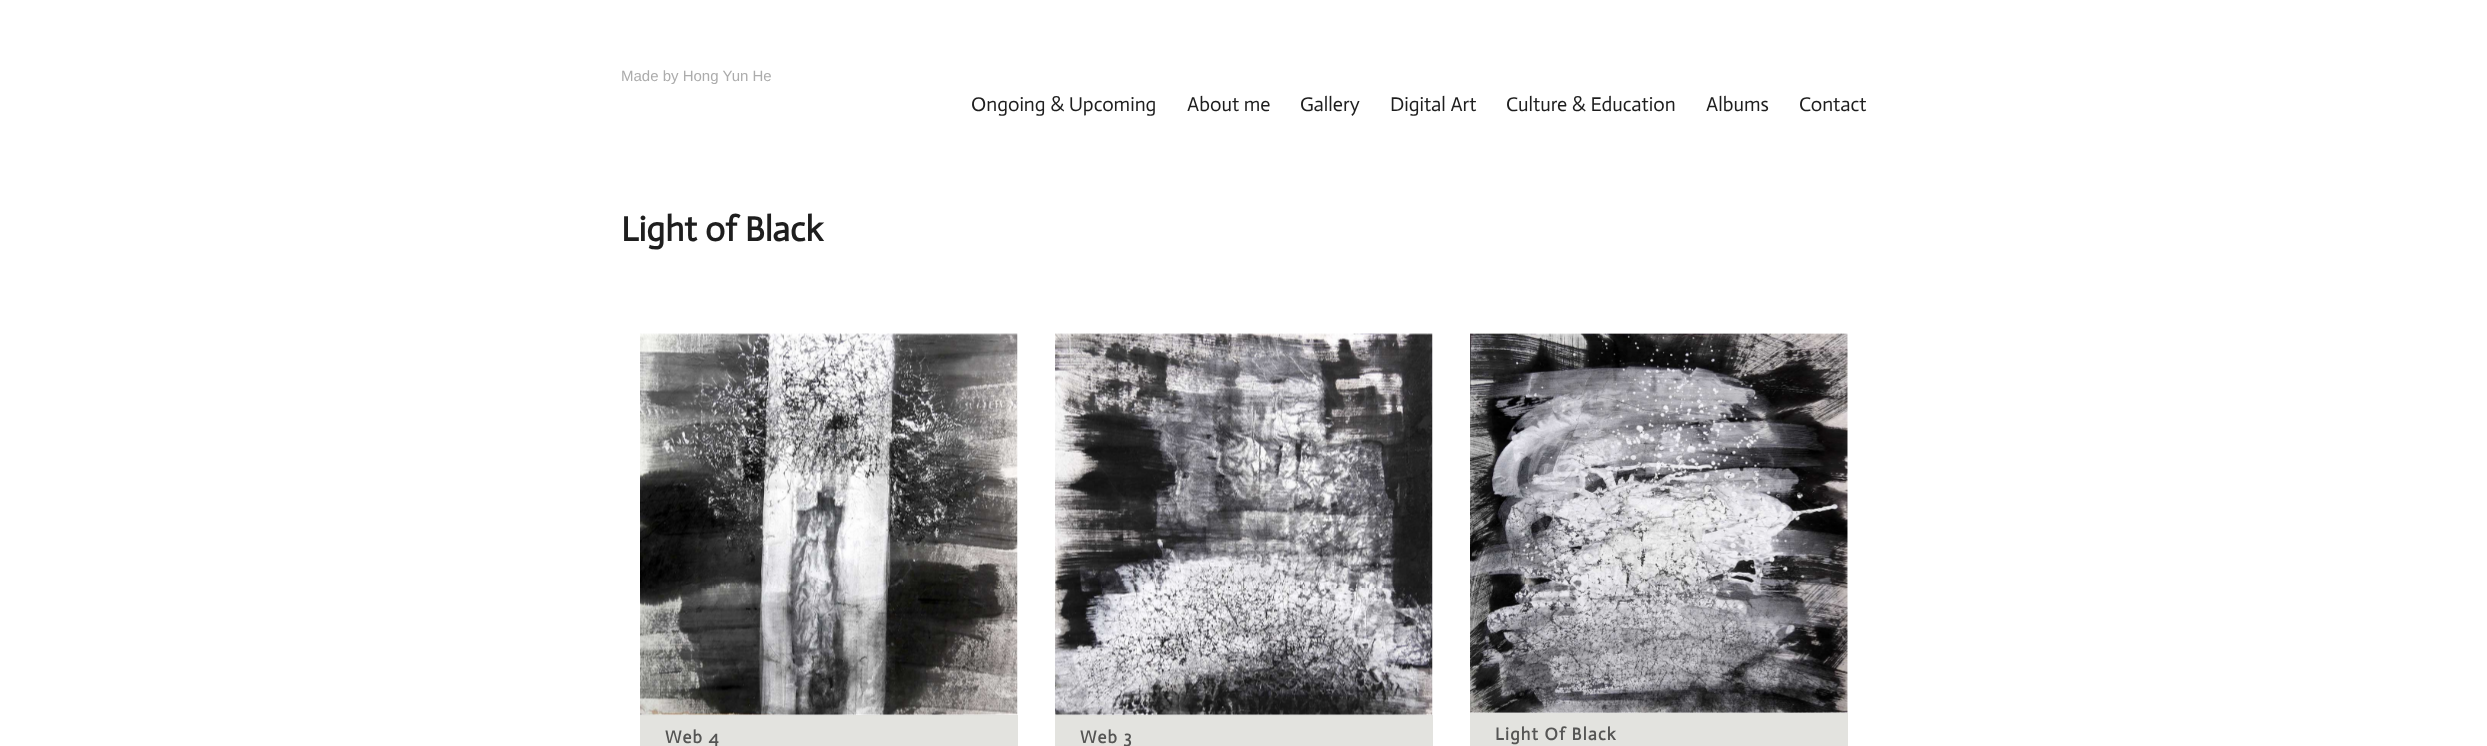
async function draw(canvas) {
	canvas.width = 2487;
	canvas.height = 746;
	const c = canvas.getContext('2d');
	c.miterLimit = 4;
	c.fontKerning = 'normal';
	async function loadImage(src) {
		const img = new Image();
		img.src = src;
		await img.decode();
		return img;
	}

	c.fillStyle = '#fff';
	c.fillRect(0, 0, 2487, 746);
	c.font = '15px Liberation Sans';
	c.fillStyle = '#acacac';
	c.fillText('Made by Hong Yun He', 621, 81);
	c.font = '20px Actor';
	c.fillStyle = '#1e1e1e';
	for (const [text, x, y] of [
		['Ongoing & Upcoming', 971, 111],
		['About me', 1187, 111],
		['Gallery', 1300, 111],
		['Digital Art', 1390, 111],
		['Culture & Education', 1506, 111],
		['Albums', 1706, 111],
		['Contact', 1799, 111],
	]) {
		c.fillText(text, x, y);
	}
	c.font = 'bold 35px Actor';
	c.fillText('Light of Black', 621, 241);
	c.drawImage(await loadImage('img1.png'), 640, 333, 378, 383);
	c.fillStyle = '#dcdcd8cf';
	c.fillRect(640, 715, 378, 31);
	c.letterSpacing = '1.25px';
	c.font = 'bold 17.5px Actor';
	c.fillStyle = '#555554';
	c.fillText('Web 4', 665, 743);
	c.drawImage(await loadImage('img2.png'), 1055, 333, 378, 383);
	c.fillStyle = '#dcdcd8cf';
	c.fillRect(1055, 715, 378, 31);
	c.fillStyle = '#555554';
	c.fillText('Web 3', 1080, 743);
	c.drawImage(await loadImage('img3.png'), 1470, 333, 378, 380);
	c.fillStyle = '#e3e3df';
	c.fillRect(1470, 713, 378, 33);
	c.fillStyle = '#555554';
	c.fillText('Light Of Black', 1495, 740);
}

draw(document.querySelector('canvas'));
